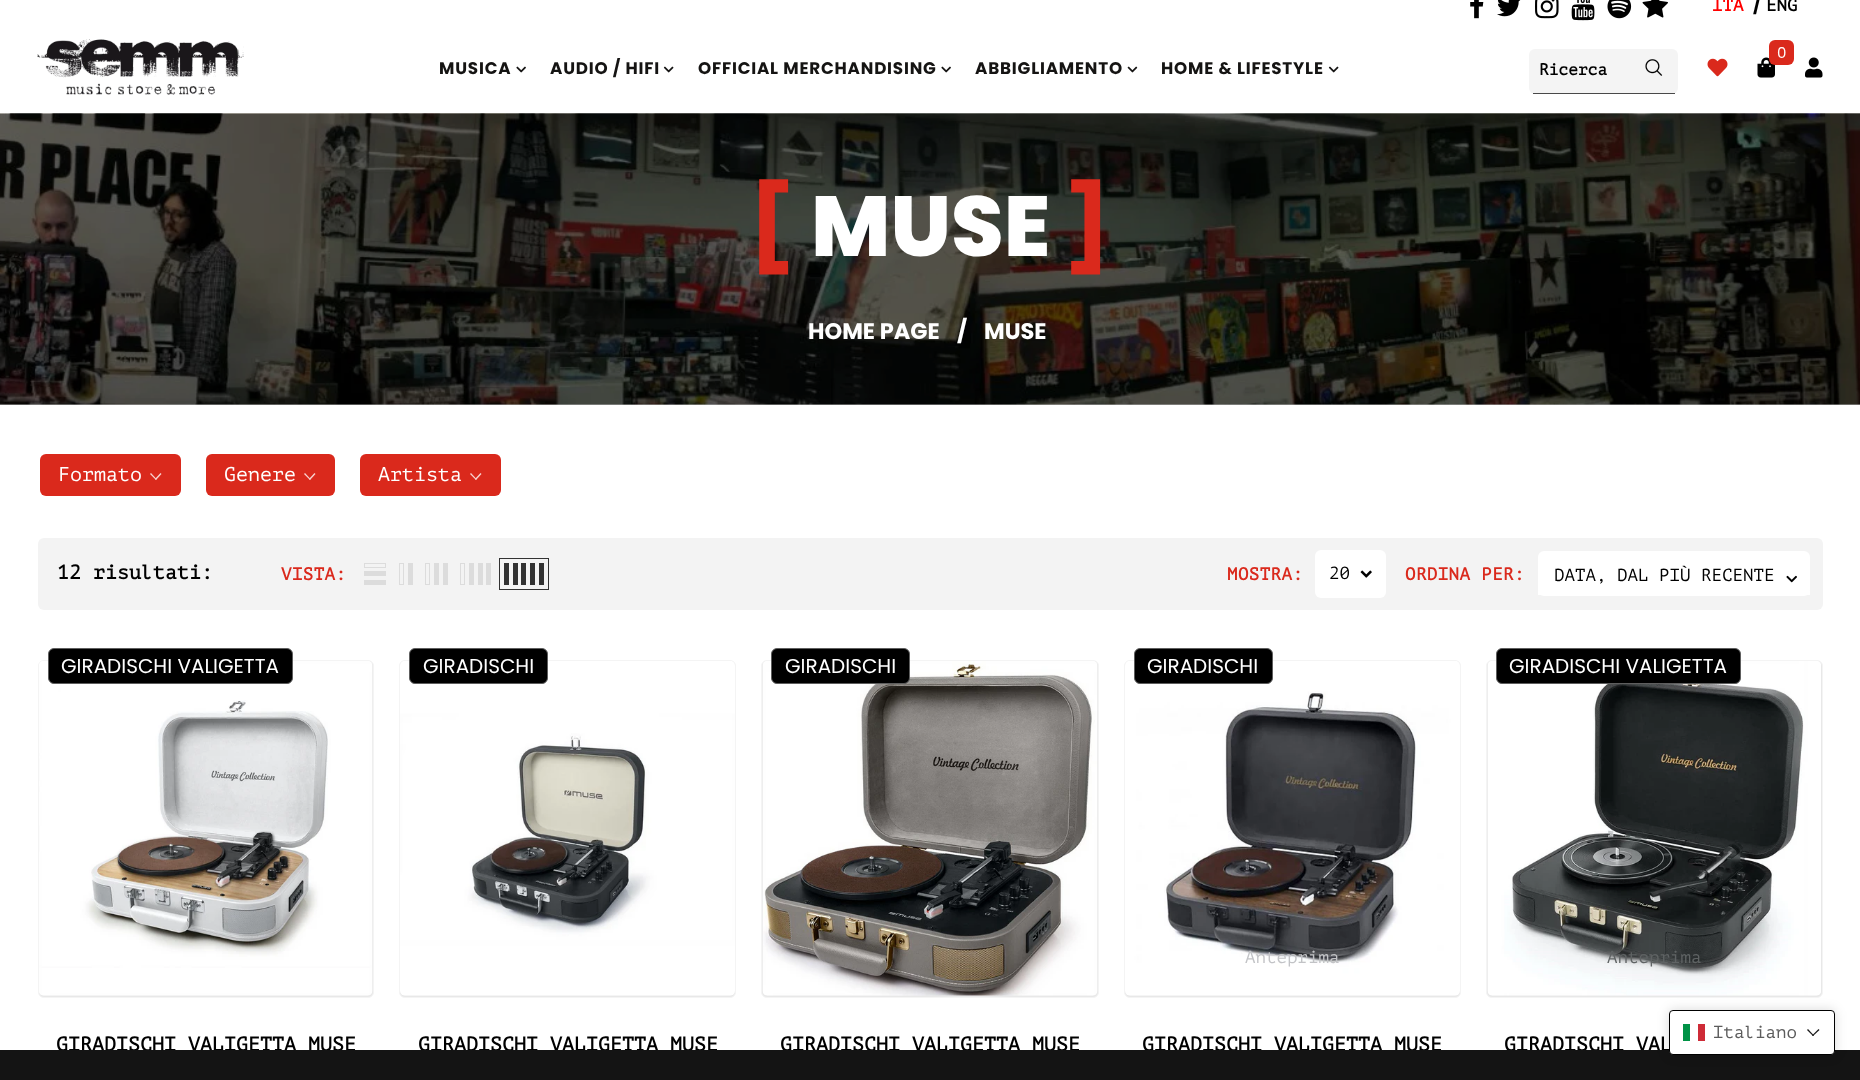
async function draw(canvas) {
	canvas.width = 1860;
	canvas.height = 1080;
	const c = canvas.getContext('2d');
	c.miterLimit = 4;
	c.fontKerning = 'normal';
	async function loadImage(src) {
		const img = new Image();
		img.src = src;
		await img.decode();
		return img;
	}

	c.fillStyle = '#fff';
	c.fillRect(0, 0, 1860, 1080);
	c.fillStyle = '#adadad';
	c.fillRect(0, 404, 1860, 1);
	c.drawImage(await loadImage('img1.png'), 1470, 0, 14, 19);
	c.drawImage(await loadImage('img2.png'), 1497, 0, 24, 17);
	c.drawImage(await loadImage('img3.png'), 1535, 0, 24, 19);
	c.drawImage(await loadImage('img4.png'), 1571, 0, 24, 21);
	c.drawImage(await loadImage('img5.png'), 1607, 0, 25, 19);
	c.drawImage(await loadImage('img6.png'), 1642, 0, 26, 18);
	c.font = 'bold 17.5px PT Mono';
	c.fillStyle = '#f00';
	c.fillText('ITA', 1712, 11);
	c.font = 'bold 17.5px Poppins';
	c.fillStyle = '#000';
	c.fillText('/', 1753, 11);
	c.font = 'bold 17.5px PT Mono';
	c.fillText('ENG', 1766, 11);
	c.drawImage(await loadImage('img7.png'), 37, 39, 207, 56);
	c.letterSpacing = '0.8px';
	c.font = 'bold 16.75px Poppins';
	c.fillStyle = '#151413';
	c.fillText('MUSICA', 439, 74);
	c.drawImage(await loadImage('img8.png'), 516, 66, 10, 7);
	c.fillText('AUDIO / HIFI', 550, 74);
	c.drawImage(await loadImage('img9.png'), 663, 66, 11, 7);
	c.fillText('OFFICIAL MERCHANDISING', 698, 74);
	c.drawImage(await loadImage('img8.png'), 941, 66, 10, 7);
	c.fillText('ABBIGLIAMENTO', 975, 74);
	c.drawImage(await loadImage('img10.png'), 1127, 66, 11, 7);
	c.fillText('HOME & LIFESTYLE', 1161, 74);
	c.drawImage(await loadImage('img9.png'), 1328, 66, 11, 7);
	c.drawImage(await loadImage('img11.png'), 1757, 57, 18, 21);
	c.fillStyle = '#da291c';
	c.beginPath();
	c.roundRect(1769, 40, 25, 25, 6);
	c.fill();
	c.letterSpacing = '0px';
	c.font = '15px Poppins';
	c.fillStyle = '#fff';
	c.fillText('0', 1777, 58);
	c.fillStyle = '#f4f4f4';
	c.beginPath();
	c.roundRect(1529, 49, 149, 45, 6);
	c.fill();
	c.fillStyle = '#000000b3';
	c.fillRect(1533, 93, 142, 1);
	c.font = 'bold 16.25px PT Mono';
	c.fillStyle = '#000';
	c.fillText('Ricerca', 1539, 75);
	c.drawImage(await loadImage('img12.png'), 1645, 59, 18, 17);
	c.drawImage(await loadImage('img13.png'), 1707, 58, 21, 19);
	c.drawImage(await loadImage('img14.png'), 1805, 57, 18, 21);
	c.drawImage(await loadImage('img15.png'), 0, 113, 1860, 292);
	c.font = '800 85px Poppins';
	c.fillStyle = '#da291c';
	c.fillText('[', 750, 256);
	c.fillStyle = '#fff';
	c.fillText('MUSE', 811, 256);
	c.fillStyle = '#da291c';
	c.fillText(']', 1065, 256);
	c.font = 'bold 22.5px Poppins';
	c.fillStyle = '#fff';
	for (const [text, x, y] of [
		['HOME PAGE', 808, 339],
		['/', 957, 339],
		['MUSE', 984, 339],
	]) {
		c.fillText(text, x, y);
	}
	c.fillStyle = '#da291c';
	c.beginPath();
	c.roundRect(40, 454, 141, 42, 6);
	c.fill();
	c.font = '20px PT Mono';
	c.fillStyle = '#fff';
	c.fillText('Formato', 58, 481);
	c.fillStyle = '#f8d4d2';
	c.beginPath();
	c.moveTo(160.5, 473);
	c.lineTo(161.5, 474);
	c.lineTo(156, 480);
	c.lineTo(155, 479);
	c.closePath();
	c.fill();
	c.beginPath();
	c.moveTo(151, 473);
	c.lineTo(156.5, 479);
	c.lineTo(156, 480);
	c.lineTo(150, 474);
	c.closePath();
	c.fill();
	c.fillStyle = '#da291c';
	c.beginPath();
	c.roundRect(206, 454, 129, 42, 6);
	c.fill();
	c.fillStyle = '#fff';
	c.fillText('Genere', 224, 481);
	c.fillStyle = '#f8d4d2';
	c.beginPath();
	c.moveTo(314.5, 473);
	c.lineTo(315.5, 474);
	c.lineTo(310, 480);
	c.lineTo(309, 479);
	c.closePath();
	c.fill();
	c.beginPath();
	c.moveTo(305, 473);
	c.lineTo(310.5, 479);
	c.lineTo(310, 480);
	c.lineTo(304, 474);
	c.closePath();
	c.fill();
	c.fillStyle = '#da291c';
	c.beginPath();
	c.roundRect(360, 454, 141, 42, 6);
	c.fill();
	c.fillStyle = '#fff';
	c.fillText('Artista', 378, 481);
	c.fillStyle = '#f8d4d2';
	c.beginPath();
	c.moveTo(480.5, 473);
	c.lineTo(481.5, 474);
	c.lineTo(476, 480);
	c.lineTo(475, 479);
	c.closePath();
	c.fill();
	c.beginPath();
	c.moveTo(471, 473);
	c.lineTo(476.5, 479);
	c.lineTo(476, 480);
	c.lineTo(470, 474);
	c.closePath();
	c.fill();
	c.fillStyle = '#f3f3f3';
	c.beginPath();
	c.roundRect(38, 538, 1785, 72, 6);
	c.fill();
	c.font = 'bold 20px PT Mono';
	c.fillStyle = '#000';
	c.fillText('12 risultati:', 57, 579);
	c.letterSpacing = '0.4px';
	c.font = 'bold 17.5px PT Mono';
	c.fillStyle = '#da291c';
	c.fillText('VISTA:', 281, 580);
	c.fillStyle = '#dcdcdc';
	c.fillRect(364, 580, 22, 5);
	c.fillRect(364, 571, 22, 5);
	c.strokeStyle = '#dcdcdc';
	c.strokeRect(364.5, 563.5, 21, 4);
	c.fillRect(408, 563, 5, 22);
	c.strokeRect(399.5, 563.5, 4, 21);
	c.fillRect(443, 563, 5, 22);
	c.fillRect(434, 563, 5, 22);
	c.strokeRect(425.5, 563.5, 4, 21);
	for (const [x, y, w, h, color] of [
		[486, 563, 5, 22, '#dcdcdc'],
		[478, 563, 5, 22, '#dcdcdc'],
		[469, 563, 5, 22, '#dcdcdc'],
	]) {
		c.fillStyle = color;
		c.fillRect(x, y, w, h);
	}
	c.strokeRect(460.5, 563.5, 4, 21);
	c.strokeStyle = '#323232';
	c.strokeRect(499.5, 558.5, 49, 31);
	for (const [x, y, w, h, color] of [
		[539, 563, 5, 22, '#323232'],
		[530, 563, 5, 22, '#323232'],
		[521, 563, 5, 22, '#323232'],
		[513, 563, 5, 22, '#323232'],
		[504, 563, 5, 22, '#323232'],
	]) {
		c.fillStyle = color;
		c.fillRect(x, y, w, h);
	}
	c.fillStyle = '#da291c';
	c.fillText('MOSTRA:', 1227, 580);
	c.fillStyle = '#fff';
	c.beginPath();
	c.roundRect(1315, 550, 71, 48, 6);
	c.fill();
	c.letterSpacing = '0px';
	c.font = '17.5px PT Mono';
	c.fillStyle = '#000';
	c.fillText('20', 1329, 579);
	c.drawImage(await loadImage('img16.png'), 1360, 570, 12, 8);
	c.letterSpacing = '0.4px';
	c.font = 'bold 17.5px PT Mono';
	c.fillStyle = '#da291c';
	c.fillText('ORDINA PER:', 1405, 580);
	c.fillStyle = '#fff';
	c.beginPath();
	c.roundRect(1538, 551, 272, 45, 6);
	c.fill();
	c.fillRect(1538, 591, 272, 4);
	c.letterSpacing = '0px';
	c.font = '17.5px PT Mono';
	c.fillStyle = '#000';
	c.fillText('DATA, DAL PIÙ RECENTE', 1554, 581);
	c.drawImage(await loadImage('img17.png'), 1786, 575, 11, 8);
	c.fillStyle = '#e8e8e8';
	c.beginPath();
	c.roundRect(38.5, 660.5, 335, 337, 5.5);
	c.fill();
	c.strokeStyle = '#f4f4f4';
	c.stroke();
	c.drawImage(await loadImage('img18.png'), 39, 661, 334, 335);
	c.fillStyle = '#000';
	c.beginPath();
	c.roundRect(48.5, 648.5, 244, 35, 5.5);
	c.fill();
	c.strokeStyle = '#5e5e5e';
	c.stroke();
	c.font = '20px Poppins';
	c.fillStyle = '#fff';
	c.fillText('GIRADISCHI VALIGETTA', 61, 673);
	c.font = 'bold 20px PT Mono';
	c.fillStyle = '#000';
	c.fillText('GIRADISCHI VALIGETTA MUSE', 56, 1051);
	c.fillStyle = '#e8e8e8';
	c.beginPath();
	c.roundRect(399.5, 660.5, 336, 337, 5.5);
	c.fill();
	c.strokeStyle = '#f4f4f4';
	c.stroke();
	c.drawImage(await loadImage('img19.png'), 400, 661, 335, 335);
	c.fillStyle = '#000';
	c.beginPath();
	c.roundRect(409.5, 648.5, 138, 35, 5.5);
	c.fill();
	c.strokeStyle = '#5e5e5e';
	c.stroke();
	c.font = '20px Poppins';
	c.fillStyle = '#fff';
	c.fillText('GIRADISCHI', 423, 673);
	c.font = 'bold 20px PT Mono';
	c.fillStyle = '#000';
	c.fillText('GIRADISCHI VALIGETTA MUSE', 418, 1051);
	c.fillStyle = '#e8e8e8';
	c.beginPath();
	c.roundRect(761.5, 660.5, 337, 337, 5.5);
	c.fill();
	c.strokeStyle = '#f4f4f4';
	c.stroke();
	c.drawImage(await loadImage('img20.png'), 762, 661, 336, 335);
	c.fillStyle = '#000';
	c.beginPath();
	c.roundRect(771.5, 648.5, 138, 35, 5.5);
	c.fill();
	c.strokeStyle = '#5e5e5e';
	c.stroke();
	c.font = '20px Poppins';
	c.fillStyle = '#fff';
	c.fillText('GIRADISCHI', 785, 673);
	c.font = 'bold 20px PT Mono';
	c.fillStyle = '#000';
	c.fillText('GIRADISCHI VALIGETTA MUSE', 780, 1051);
	c.fillStyle = '#e8e8e8';
	c.beginPath();
	c.roundRect(1124.5, 660.5, 336, 337, 5.5);
	c.fill();
	c.strokeStyle = '#f4f4f4';
	c.stroke();
	c.drawImage(await loadImage('img21.png'), 1125, 661, 335, 335);
	c.fillStyle = '#000';
	c.beginPath();
	c.roundRect(1134.5, 648.5, 138, 35, 5.5);
	c.fill();
	c.strokeStyle = '#5e5e5e';
	c.stroke();
	c.font = '20px Poppins';
	c.fillStyle = '#fff';
	c.fillText('GIRADISCHI', 1147, 673);
	c.font = '17.5px PT Mono';
	c.fillStyle = '#c2c3c6';
	c.fillText('Anteprima', 1245, 963);
	c.font = 'bold 20px PT Mono';
	c.fillStyle = '#000';
	c.fillText('GIRADISCHI VALIGETTA MUSE', 1142, 1051);
	c.fillStyle = '#e8e8e8';
	c.beginPath();
	c.roundRect(1486.5, 660.5, 336, 337, 5.5);
	c.fill();
	c.strokeStyle = '#f4f4f4';
	c.stroke();
	c.drawImage(await loadImage('img22.png'), 1487, 661, 334, 335);
	c.fillStyle = '#000';
	c.beginPath();
	c.roundRect(1496.5, 648.5, 244, 35, 5.5);
	c.fill();
	c.strokeStyle = '#5e5e5e';
	c.stroke();
	c.font = '20px Poppins';
	c.fillStyle = '#fff';
	c.fillText('GIRADISCHI VALIGETTA', 1509, 673);
	c.font = '17.5px PT Mono';
	c.fillStyle = '#5f6364';
	c.fillText('Anteprima', 1607, 963);
	c.font = 'bold 20px PT Mono';
	c.fillStyle = '#000';
	c.fillText('GIRADISCHI VAL', 1504, 1051);
	c.fillStyle = '#141414';
	c.fillRect(0, 1050, 1860, 30);
	c.fillStyle = '#00000026';
	c.filter = 'blur(6px)';
	c.beginPath();
	c.roundRect(1669, 1010, 166, 45, 4);
	c.fill();
	c.filter = 'none';
	c.fillStyle = '#fff';
	c.beginPath();
	c.roundRect(1669.5, 1010.5, 165, 44, 3.5);
	c.fill();
	c.strokeStyle = '#000';
	c.stroke();
	c.fillStyle = '#009246';
	c.fillRect(1683, 1024, 7, 17);
	c.fillStyle = '#ce2b37';
	c.fillRect(1698, 1024, 7, 17);
	c.font = '17.5px PT Mono';
	c.fillStyle = '#5c5c5c';
	c.fillText('Italiano', 1713, 1038);
	c.fillStyle = '#1a1a1a';
	c.beginPath();
	c.moveTo(1818.5, 1029);
	c.lineTo(1819.5, 1030);
	c.lineTo(1813, 1036);
	c.lineTo(1812, 1035.5);
	c.closePath();
	c.fill();
	c.beginPath();
	c.moveTo(1808, 1029);
	c.lineTo(1814, 1035.5);
	c.lineTo(1813, 1036);
	c.lineTo(1807, 1030);
	c.closePath();
	c.fill();
}

draw(document.querySelector('canvas'));
